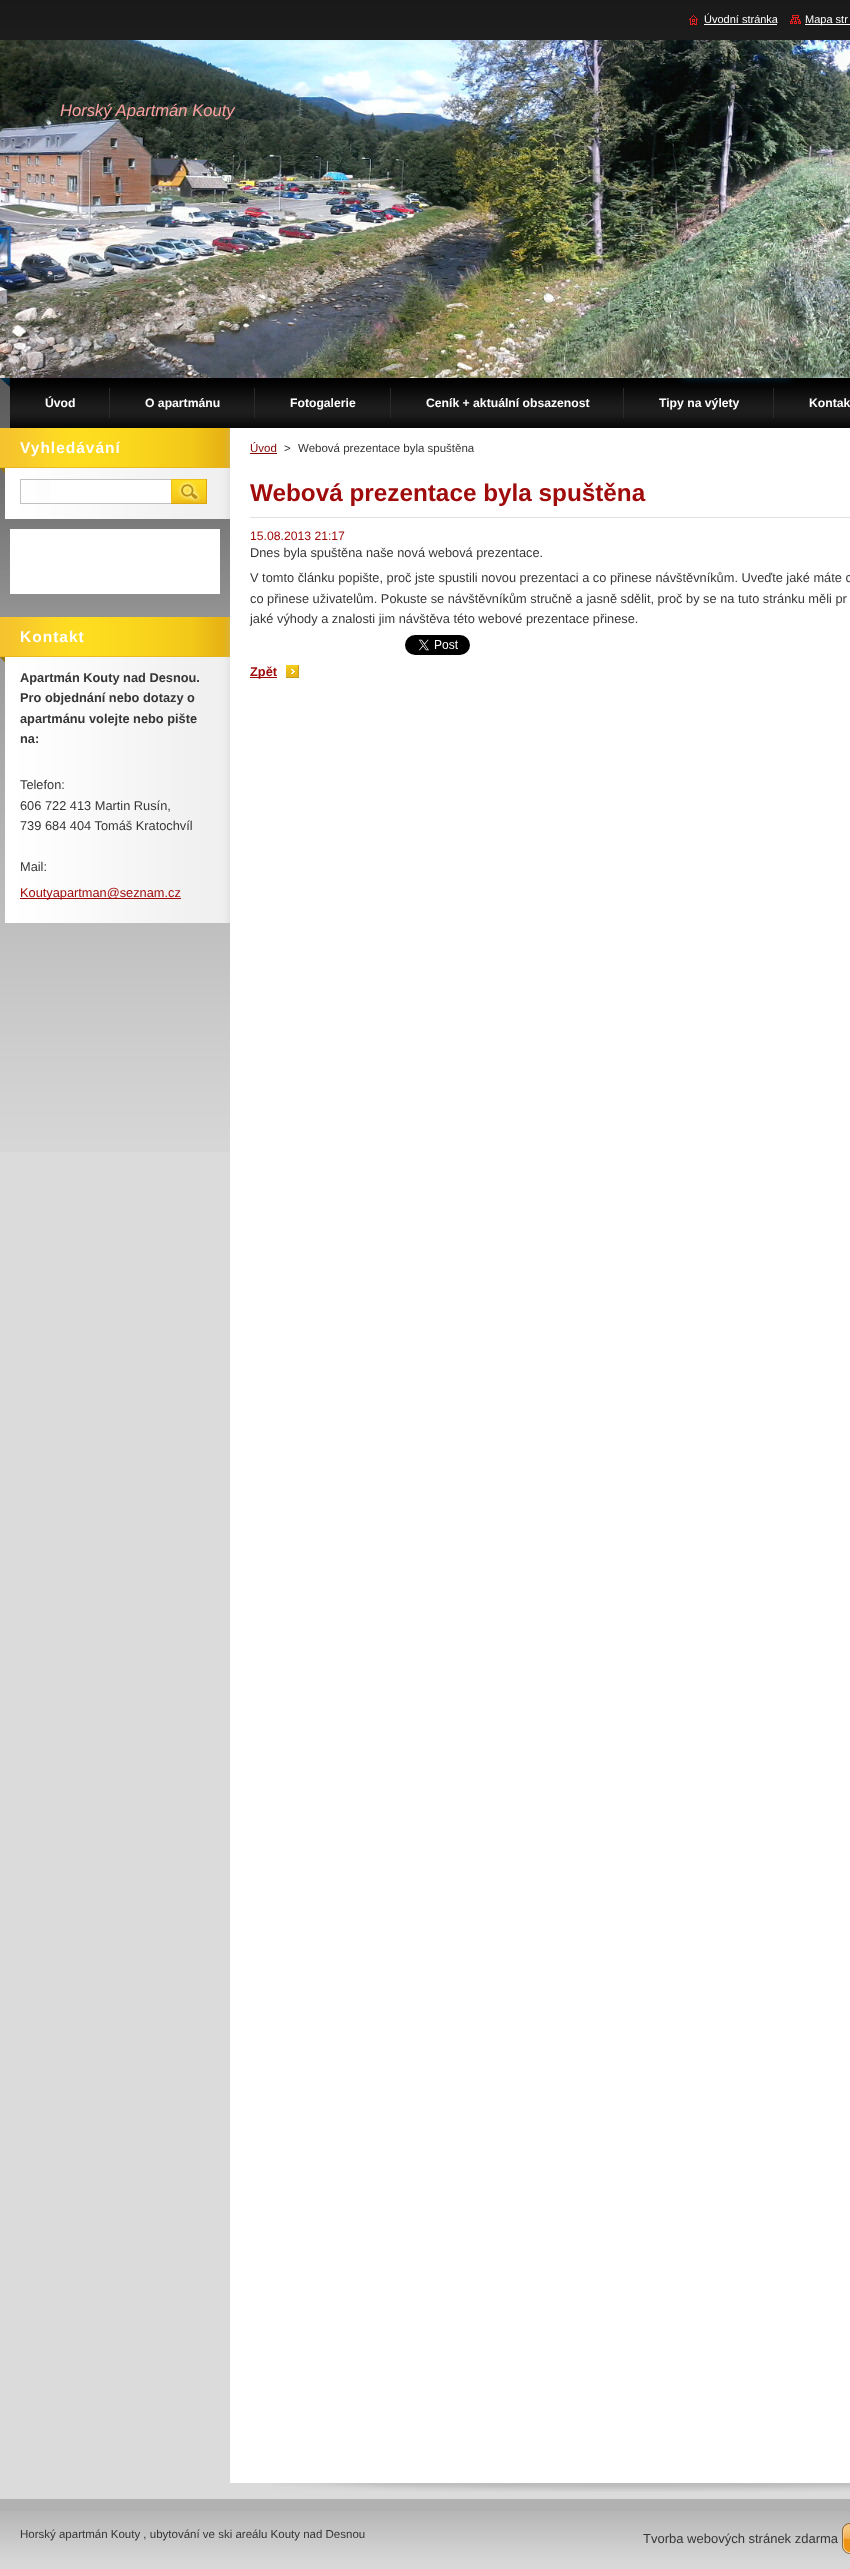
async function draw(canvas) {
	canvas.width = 850;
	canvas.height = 2569;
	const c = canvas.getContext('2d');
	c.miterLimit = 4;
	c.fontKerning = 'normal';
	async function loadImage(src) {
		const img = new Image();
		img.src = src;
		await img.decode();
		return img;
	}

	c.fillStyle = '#dbdbdb';
	c.fillRect(0, 0, 850, 2569);
	c.drawImage(await loadImage('img1.png'), 0, 0, 850, 1152);
	c.drawImage(await loadImage('img2.png'), 689, 15, 9, 10);
	c.font = '11px Liberation Sans';
	c.fillStyle = '#fff';
	c.fillText('Úvodní stránka', 704, 23);
	c.fillRect(704, 24, 73, 1);
	c.drawImage(await loadImage('img3.png'), 790, 15, 11, 9);
	c.fillRect(805, 24, 45, 1);
	c.fillText('Mapa str', 805, 23);
	c.drawImage(await loadImage('img4.png'), 0, 40, 850, 338);
	c.font = 'italic 16.6px Liberation Sans';
	c.fillStyle = '#fba0a0';
	c.fillText('Horský Apartmán Kouty', 60, 116);
	c.drawImage(await loadImage('img5.png'), 0, 378, 850, 50);
	c.fillStyle = '#2a2a2a';
	c.fillRect(109, 388, 1, 30);
	c.font = 'bold 12.2px Liberation Sans';
	c.fillStyle = '#fff';
	c.fillText('Úvod', 45, 407);
	c.fillStyle = '#2a2a2a';
	c.fillRect(254, 388, 1, 30);
	c.fillStyle = '#fff';
	c.fillText('O apartmánu', 145, 407);
	c.fillStyle = '#2a2a2a';
	c.fillRect(390, 388, 1, 30);
	c.fillStyle = '#fff';
	c.fillText('Fotogalerie', 290, 407);
	c.fillStyle = '#2a2a2a';
	c.fillRect(623, 388, 1, 30);
	c.fillStyle = '#fff';
	c.fillText('Ceník + aktuální obsazenost', 426, 407);
	c.fillStyle = '#2a2a2a';
	c.fillRect(773, 388, 1, 30);
	c.fillStyle = '#fff';
	c.fillText('Tipy na výlety', 659, 407);
	c.fillText('Kontak', 809, 407);
	c.drawImage(await loadImage('img6.png'), 5, 474, 225, 45);
	c.drawImage(await loadImage('img7.png'), 0, 428, 230, 46);
	c.letterSpacing = '1px';
	c.font = 'bold 15.5px Liberation Sans';
	c.fillText('Vyhledávání', 20, 453);
	c.fillRect(51, 480, 120, 23);
	c.strokeStyle = '#c1c1c1';
	c.strokeRect(20.5, 479.5, 151, 24);
	c.drawImage(await loadImage('img8.png'), 171, 479, 36, 25);
	c.fillRect(10, 529, 210, 65);
	c.drawImage(await loadImage('img9.png'), 5, 663, 225, 260);
	c.drawImage(await loadImage('img10.png'), 0, 617, 230, 46);
	c.fillText('Kontakt', 20, 642);
	c.letterSpacing = '0px';
	c.font = 'bold 12.8px Liberation Sans';
	c.fillStyle = '#363636';
	for (const [text, x, y] of [
		['Apartmán Kouty nad Desnou.', 20, 682],
		['Pro objednání nebo dotazy o', 20, 702],
		['apartmánu volejte nebo pište', 20, 723],
		['na:', 20, 743],
	]) {
		c.fillText(text, x, y);
	}
	c.font = '12.8px Liberation Sans';
	for (const [text, x, y] of [
		['Telefon:', 20, 789],
		['606 722 413 Martin Rusín,', 20, 810],
		['739 684 404 Tomáš Kratochvíl', 20, 830],
		['Mail:', 20, 871],
	]) {
		c.fillText(text, x, y);
	}
	c.fillStyle = '#a00c0c';
	c.fillRect(20, 898, 54, 1);
	c.fillText('Koutyapa', 20, 897);
	c.fillRect(74, 898, 107, 1);
	c.fillText('rtman@seznam.cz', 74, 897);
	c.drawImage(await loadImage('img11.png'), 272, 2483, 578, 9);
	c.fillStyle = '#fff';
	c.fillRect(230, 428, 620, 2055);
	c.font = '11.5px Liberation Sans';
	c.fillStyle = '#830505';
	c.fillText('Úvod', 250, 452);
	c.fillRect(250, 453, 27, 1);
	c.fillStyle = '#363636';
	c.fillText('>', 284, 452);
	c.fillText('Webová prezentace byla spuštěna', 298, 452);
	c.fillStyle = '#e1e1e1';
	c.fillRect(250, 517, 600, 1);
	c.font = 'bold 24.3px Liberation Sans';
	c.fillStyle = '#a00c0c';
	c.fillText('Webová prezentace byla spuštěna', 250, 501);
	c.font = '12.2px Liberation Sans';
	c.fillText('15.08.2013 21:17', 250, 540);
	c.font = '12.8px Liberation Sans';
	c.fillStyle = '#363636';
	for (const [text, x, y] of [
		['Dnes byla spuštěna naše nová webová prezentace.', 250, 557],
		['V tomto článku popište, proč jste spustili novou prezentaci a co přinese návštěvníkům. Uveďte jaké máte c', 250, 582],
		['co přinese uživatelům. Pokuste se návštěvníkům stručně a jasně sdělit, proč by se na tuto stránku měli pr', 250, 603],
		['jaké výhody a znalosti jim návštěva této webové prezentace přinese.', 250, 623],
	]) {
		c.fillText(text, x, y);
	}
	c.drawImage(await loadImage('img12.png'), 405, 635, 65, 20);
	c.drawImage(await loadImage('img13.png'), 286, 665, 13, 13);
	c.fillStyle = '#a00c0c';
	c.fillRect(250, 677, 27, 1);
	c.font = 'bold 12.8px Liberation Sans';
	c.fillText('Zpět', 250, 676);
	c.fillStyle = '#b1b1b1';
	c.fillRect(0, 2499, 850, 12);
	c.drawImage(await loadImage('img14.png'), 0, 2511, 850, 58);
	c.font = '11.5px Liberation Sans';
	c.fillStyle = '#363636';
	c.fillText('Horský apartmán Kouty , ubytování ve ski areálu Kouty nad Desnou', 20, 2538);
	c.font = '13px Liberation Sans';
	c.fillText('Tvorba webových stránek zdarma', 643, 2543);
	c.drawImage(await loadImage('img15.png'), 842, 2523, 8, 31);
}

draw(document.querySelector('canvas'));
